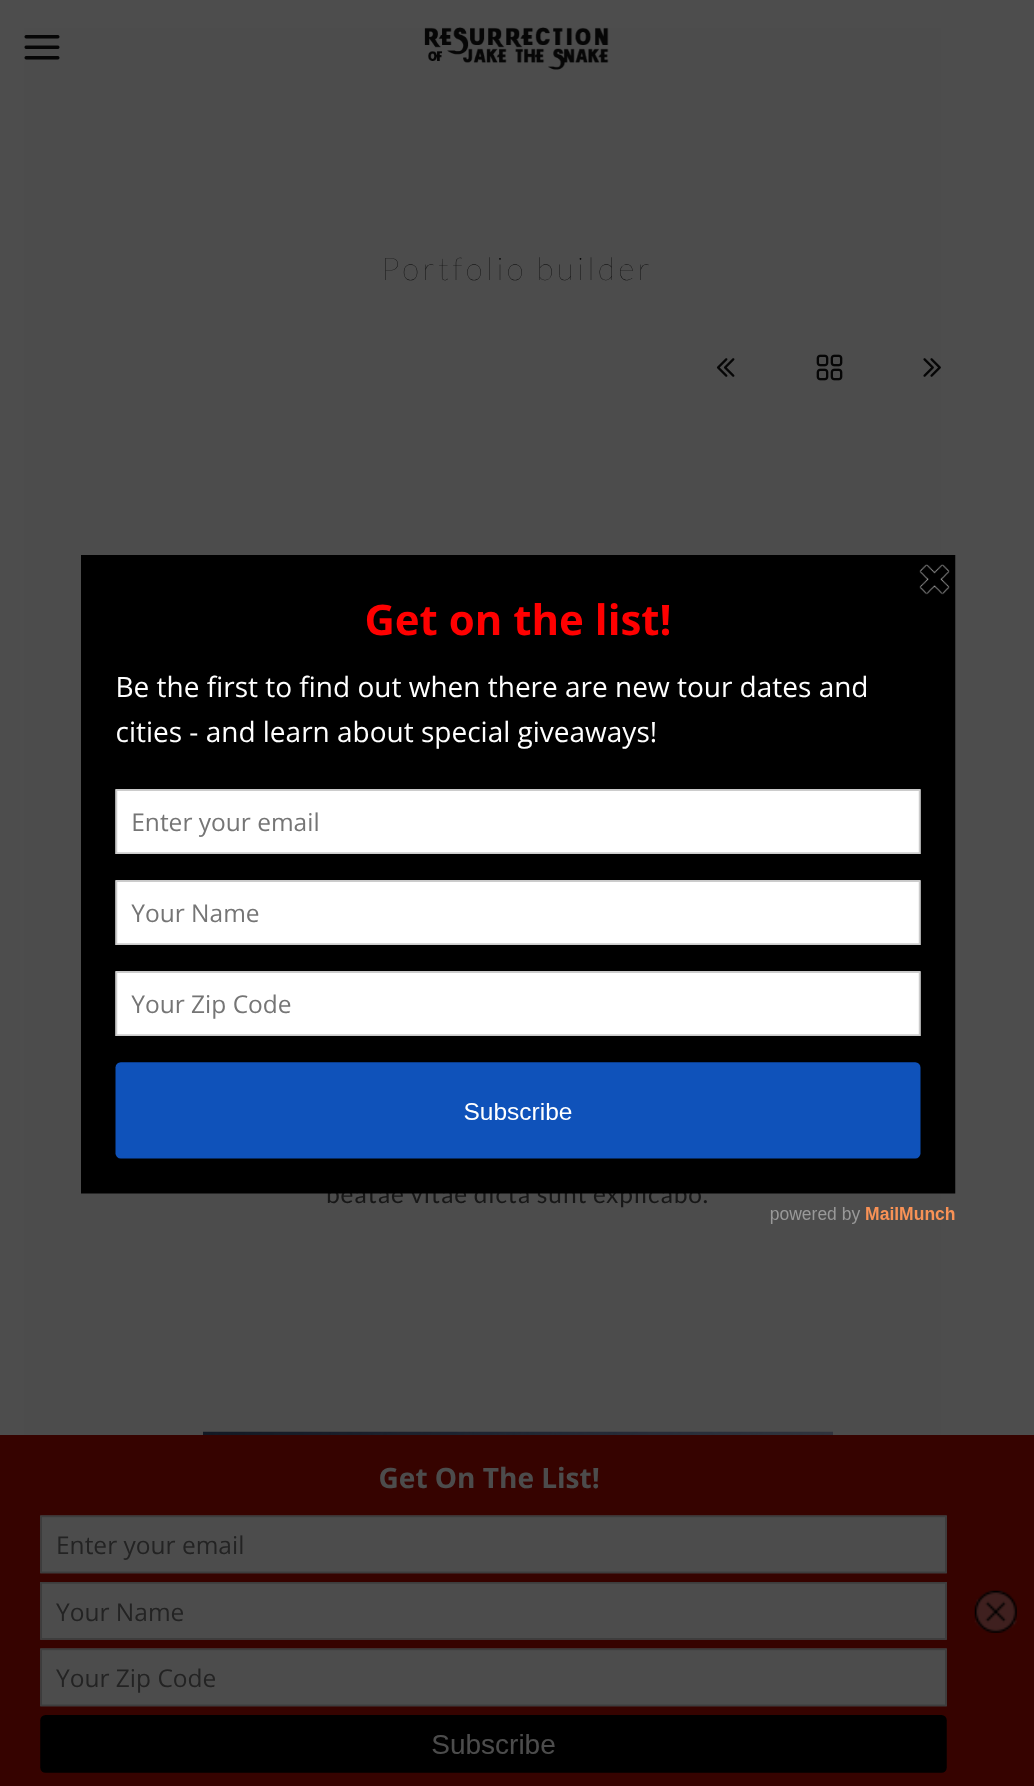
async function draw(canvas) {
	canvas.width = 1034;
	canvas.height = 1786;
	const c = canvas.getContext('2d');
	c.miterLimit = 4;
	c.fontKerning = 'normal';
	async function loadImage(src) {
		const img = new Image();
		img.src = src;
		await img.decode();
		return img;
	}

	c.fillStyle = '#4d4d4d';
	c.fillRect(0, 0, 1034, 1786);
	c.drawImage(await loadImage('img1.png'), 24, 35, 36, 25);
	c.drawImage(await loadImage('img2.png'), 424, 27, 185, 43);
	c.drawImage(await loadImage('img3.png'), 716, 358, 19, 19);
	c.drawImage(await loadImage('img4.png'), 816, 354, 27, 27);
	c.drawImage(await loadImage('img5.png'), 923, 358, 18, 19);
	c.drawImage(await loadImage('img6.png'), 203, 1431, 630, 4);
	c.fillStyle = '#4d4d4d14';
	c.fillRect(24, 28, 917, 1407);
	c.letterSpacing = '3.5px';
	c.font = '100 31.5px Lato';
	c.fillStyle = '#000';
	c.fillText('Portfolio builder', 381, 280);
	c.letterSpacing = '0.9px';
	c.font = '24.5px Lato';
	c.fillStyle = '#171717';
	c.fillText('beatae vitae dicta sunt explicabo.', 326, 1203);
	c.drawImage(await loadImage('img7.png'), 81, 555, 875, 669);
	c.drawImage(await loadImage('img8.png'), 0, 1435, 1034, 351);
}

draw(document.querySelector('canvas'));
